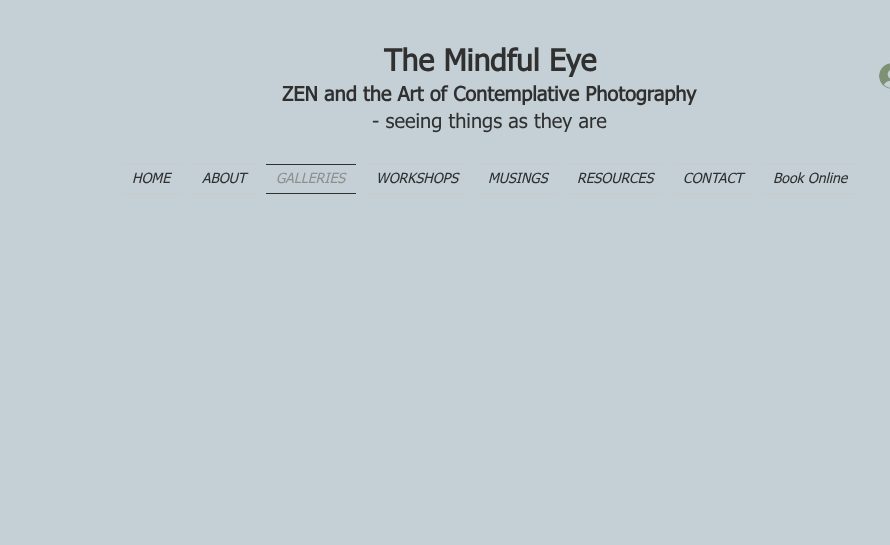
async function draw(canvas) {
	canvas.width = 890;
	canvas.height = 545;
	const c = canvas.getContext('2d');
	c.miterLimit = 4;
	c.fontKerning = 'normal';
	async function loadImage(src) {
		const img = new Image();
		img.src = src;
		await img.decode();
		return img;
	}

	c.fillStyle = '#c4d0d5';
	c.fillRect(0, 0, 890, 545);
	c.font = 'bold 30px tahoma';
	c.fillStyle = '#303030';
	c.fillText('The Mindful Eye', 384, 71);
	c.drawImage(await loadImage('img1.png'), 879, 63, 11, 26);
	c.font = 'bold 20px tahoma';
	c.fillText('ZEN and the Art of Contemplative Photography', 282, 101);
	c.font = '20px tahoma';
	c.fillText('- seeing things as they are', 372, 128);
	c.fillStyle = '#cacaca';
	c.fillRect(122, 164, 59, 1);
	c.fillRect(122, 193, 59, 1);
	c.font = 'italic 14px tahoma';
	c.fillStyle = '#303030';
	c.fillText('HOME', 132, 183);
	c.fillStyle = '#cacaca';
	c.fillRect(191, 164, 65, 1);
	c.fillRect(191, 193, 65, 1);
	c.fillStyle = '#303030';
	c.fillText('ABOUT', 202, 183);
	c.fillRect(266, 164, 90, 1);
	c.fillRect(266, 193, 90, 1);
	c.fillStyle = '#909090';
	c.fillText('GALLERIES', 276, 183);
	c.fillStyle = '#cacaca';
	c.fillRect(366, 164, 102, 1);
	c.fillRect(366, 193, 102, 1);
	c.fillStyle = '#303030';
	c.fillText('WORKSHOPS', 376, 183);
	c.fillStyle = '#cacaca';
	c.fillRect(478, 164, 79, 1);
	c.fillRect(478, 193, 79, 1);
	c.fillStyle = '#303030';
	c.fillText('MUSINGS', 488, 183);
	c.fillStyle = '#cacaca';
	c.fillRect(567, 164, 96, 1);
	c.fillRect(567, 193, 96, 1);
	c.fillStyle = '#303030';
	c.fillText('RESOURCES', 577, 183);
	c.fillStyle = '#cacaca';
	c.fillRect(673, 164, 80, 1);
	c.fillRect(673, 193, 80, 1);
	c.fillStyle = '#303030';
	c.fillText('CONTACT', 683, 183);
	c.fillStyle = '#cacaca';
	c.fillRect(763, 164, 94, 1);
	c.fillRect(763, 193, 94, 1);
	c.fillStyle = '#303030';
	c.fillText('Book Online', 773, 183);
}

draw(document.querySelector('canvas'));
